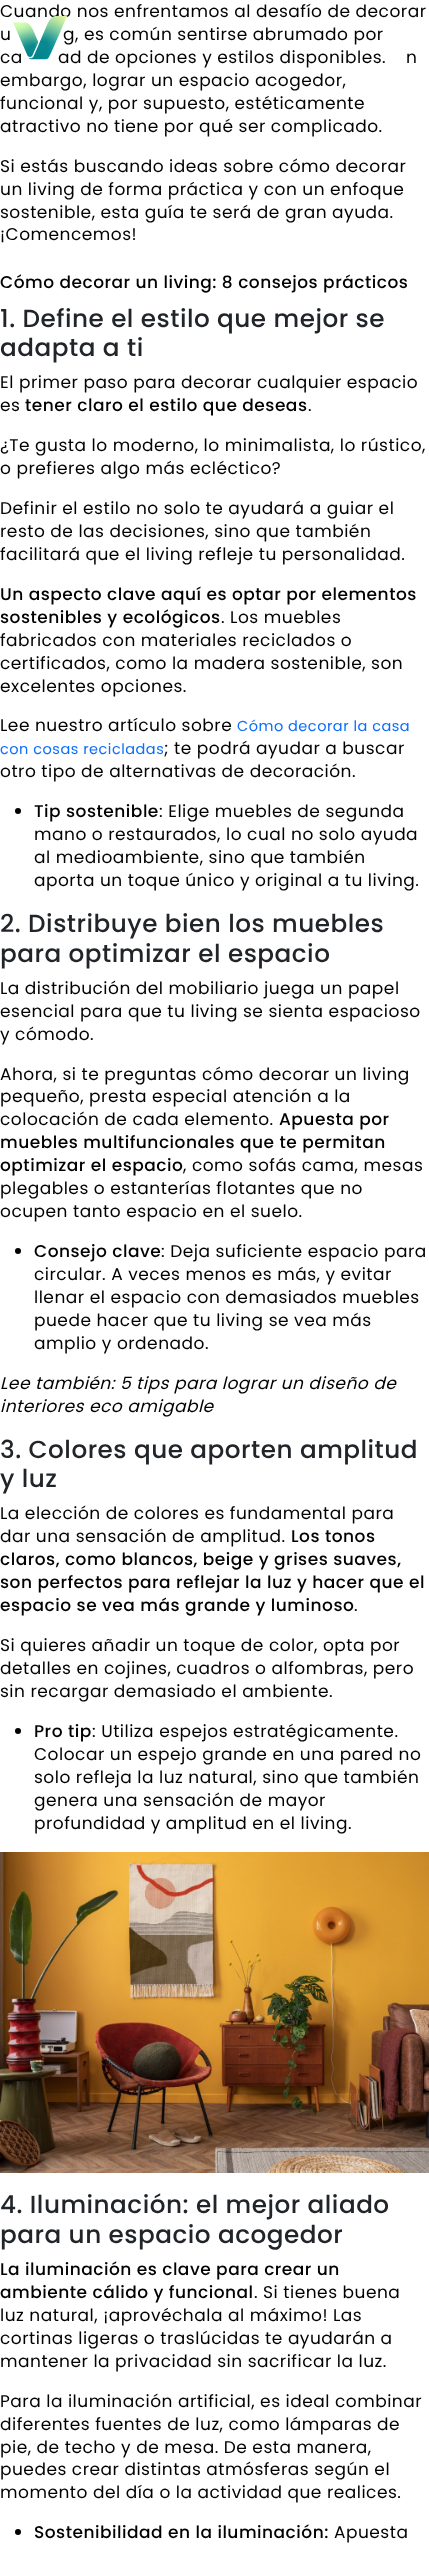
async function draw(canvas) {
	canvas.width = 429;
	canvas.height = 2555;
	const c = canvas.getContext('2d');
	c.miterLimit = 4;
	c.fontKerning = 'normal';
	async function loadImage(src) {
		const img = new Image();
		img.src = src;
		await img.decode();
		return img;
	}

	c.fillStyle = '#fff';
	c.fillRect(0, 0, 429, 2555);
	c.letterSpacing = '0.5px';
	c.font = '17px Poppins';
	c.fillStyle = '#000';
	for (const [text, x, y] of [
		['Cuando nos enfrentamos al desafío de decorar', 0, 17],
		['u', 0, 40],
		['g, es común sentirse abrumado por', 63, 40],
		['ca', 0, 63],
		['ad de opciones y estilos disponibles.', 58, 63],
		['n', 406, 63],
		['embargo, lograr un espacio acogedor,', 0, 86],
		['funcional y, por supuesto, estéticamente', 0, 109],
		['atractivo no tiene por qué ser complicado.', 0, 132],
	]) {
		c.fillText(text, x, y);
	}
	c.drawImage(await loadImage('img1.png'), 13, 16, 54, 48);
	for (const [text, x, y] of [
		['Si estás buscando ideas sobre cómo decorar', 0, 172],
		['un living de forma práctica y con un enfoque', 0, 195],
		['sostenible, esta guía te será de gran ayuda.', 0, 218],
		['¡Comencemos!', 0, 240],
	]) {
		c.fillText(text, x, y);
	}
	c.font = '500 17px Poppins';
	c.fillText('Cómo decorar un living: 8 consejos prácticos', 0, 288);
	c.font = '500 24.7px Poppins';
	c.fillStyle = '#212529';
	c.fillText('1. Define el estilo que mejor se', 0, 327);
	c.fillText('adapta a ti', 0, 356);
	c.font = '17px Poppins';
	c.fillStyle = '#000';
	c.fillText('El primer paso para decorar cualquier espacio', 0, 388);
	c.fillText('es', 0, 411);
	c.font = '500 17px Poppins';
	c.fillText('tener claro el estilo que deseas', 25, 411);
	c.font = '17px Poppins';
	for (const [text, x, y] of [
		['.', 308, 411],
		['¿Te gusta lo moderno, lo minimalista, lo rústico,', 0, 451],
		['o prefieres algo más ecléctico?', 0, 474],
		['Definir el estilo no solo te ayudará a guiar el', 0, 514],
		['resto de las decisiones, sino que también', 0, 537],
		['facilitará que el living refleje tu personalidad.', 0, 560],
	]) {
		c.fillText(text, x, y);
	}
	c.font = '500 17px Poppins';
	c.fillText('Un aspecto clave aquí es optar por elementos', 0, 600);
	c.fillText('sostenibles y ecológicos', 0, 623);
	c.font = '17px Poppins';
	for (const [text, x, y] of [
		['. Los muebles', 221, 623],
		['fabricados con materiales reciclados o', 0, 646],
		['certificados, como la madera sostenible, son', 0, 669],
		['excelentes opciones.', 0, 692],
		['Lee nuestro artículo sobre', 0, 731],
	]) {
		c.fillText(text, x, y);
	}
	c.font = '14.5px Poppins';
	c.fillStyle = '#0d6efd';
	c.fillText('Cómo decorar la casa', 237, 731);
	c.fillText('con cosas recicladas', 0, 754);
	c.font = '17px Poppins';
	c.fillStyle = '#000';
	c.fillText('; te podrá ayudar a buscar', 164, 754);
	c.fillText('otro tipo de alternativas de decoración.', 0, 777);
	c.beginPath();
	c.arc(18, 811, 3, 0, 2 * Math.PI);
	c.fill();
	c.font = '500 17px Poppins';
	c.fillText('Tip sostenible', 34, 817);
	c.font = '17px Poppins';
	for (const [text, x, y] of [
		[': Elige muebles de segunda', 159, 817],
		['mano o restaurados, lo cual no solo ayuda', 34, 840],
		['al medioambiente, sino que también', 34, 863],
		['aporta un toque único y original a tu living.', 34, 886],
	]) {
		c.fillText(text, x, y);
	}
	c.font = '500 24.7px Poppins';
	c.fillStyle = '#212529';
	c.fillText('2. Distribuye bien los muebles', 0, 932);
	c.fillText('para optimizar el espacio', 0, 962);
	c.font = '17px Poppins';
	c.fillStyle = '#000';
	for (const [text, x, y] of [
		['La distribución del mobiliario juega un papel', 0, 994],
		['esencial para que tu living se sienta espacioso', 0, 1017],
		['y cómodo.', 0, 1040],
		['Ahora, si te preguntas cómo decorar un living', 0, 1080],
		['pequeño, presta especial atención a la', 0, 1102],
		['colocación de cada elemento.', 0, 1125],
	]) {
		c.fillText(text, x, y);
	}
	c.font = '500 17px Poppins';
	for (const [text, x, y] of [
		['Apuesta por', 279, 1125],
		['muebles multifuncionales que te permitan', 0, 1148],
		['optimizar el espacio', 0, 1171],
	]) {
		c.fillText(text, x, y);
	}
	c.font = '17px Poppins';
	for (const [text, x, y] of [
		[', como sofás cama, mesas', 183, 1171],
		['plegables o estanterías flotantes que no', 0, 1194],
		['ocupen tanto espacio en el suelo.', 0, 1217],
	]) {
		c.fillText(text, x, y);
	}
	c.beginPath();
	c.arc(18, 1251, 3, 0, 2 * Math.PI);
	c.fill();
	c.font = '500 17px Poppins';
	c.fillText('Consejo clave', 34, 1257);
	c.font = '17px Poppins';
	for (const [text, x, y] of [
		[': Deja suficiente espacio para', 161, 1257],
		['circular. A veces menos es más, y evitar', 34, 1280],
		['llenar el espacio con demasiados muebles', 34, 1303],
		['puede hacer que tu living se vea más', 34, 1326],
		['amplio y ordenado.', 34, 1349],
	]) {
		c.fillText(text, x, y);
	}
	c.font = 'italic 17px Poppins';
	c.fillText('Lee también: 5 tips para lograr un diseño de', 0, 1389);
	c.fillText('interiores eco amigable', 0, 1412);
	c.font = '500 24.7px Poppins';
	c.fillStyle = '#212529';
	c.fillText('3. Colores que aporten amplitud', 0, 1458);
	c.fillText('y luz', 0, 1487);
	c.font = '17px Poppins';
	c.fillStyle = '#000';
	c.fillText('La elección de colores es fundamental para', 0, 1519);
	c.fillText('dar una sensación de amplitud.', 0, 1542);
	c.font = '500 17px Poppins';
	for (const [text, x, y] of [
		['Los tonos', 291, 1542],
		['claros, como blancos, beige y grises suaves,', 0, 1565],
		['son perfectos para reflejar la luz y hacer que el', 0, 1588],
		['espacio se vea más grande y luminoso', 0, 1611],
	]) {
		c.fillText(text, x, y);
	}
	c.font = '17px Poppins';
	for (const [text, x, y] of [
		['.', 354, 1611],
		['Si quieres añadir un toque de color, opta por', 0, 1651],
		['detalles en cojines, cuadros o alfombras, pero', 0, 1674],
		['sin recargar demasiado el ambiente.', 0, 1697],
	]) {
		c.fillText(text, x, y);
	}
	c.beginPath();
	c.arc(18, 1731, 3, 0, 2 * Math.PI);
	c.fill();
	c.font = '500 17px Poppins';
	c.fillText('Pro tip', 34, 1737);
	c.font = '17px Poppins';
	for (const [text, x, y] of [
		[': Utiliza espejos estratégicamente.', 92, 1737],
		['Colocar un espejo grande en una pared no', 34, 1760],
		['solo refleja la luz natural, sino que también', 34, 1783],
		['genera una sensación de mayor', 34, 1806],
		['profundidad y amplitud en el living.', 34, 1829],
	]) {
		c.fillText(text, x, y);
	}
	c.drawImage(await loadImage('img2.png'), 0, 1852, 429, 321);
	c.font = '500 24.7px Poppins';
	c.fillStyle = '#212529';
	c.fillText('4. Iluminación: el mejor aliado', 0, 2213);
	c.fillText('para un espacio acogedor', 0, 2243);
	c.font = '500 17px Poppins';
	c.fillStyle = '#000';
	c.fillText('La iluminación es clave para crear un', 0, 2275);
	c.fillText('ambiente cálido y funcional', 0, 2298);
	c.font = '17px Poppins';
	for (const [text, x, y] of [
		['. Si tienes buena', 254, 2298],
		['luz natural, ¡aprovéchala al máximo! Las', 0, 2321],
		['cortinas ligeras o traslúcidas te ayudarán a', 0, 2344],
		['mantener la privacidad sin sacrificar la luz.', 0, 2367],
		['Para la iluminación artificial, es ideal combinar', 0, 2407],
		['diferentes fuentes de luz, como lámparas de', 0, 2430],
		['pie, de techo y de mesa. De esta manera,', 0, 2453],
		['puedes crear distintas atmósferas según el', 0, 2475],
		['momento del día o la actividad que realices.', 0, 2498],
	]) {
		c.fillText(text, x, y);
	}
	c.beginPath();
	c.arc(18, 2532, 3, 0, 2 * Math.PI);
	c.fill();
	c.font = '500 17px Poppins';
	c.fillText('Sostenibilidad en la iluminación:', 34, 2538);
	c.font = '17px Poppins';
	c.fillText('Apuesta', 334, 2538);
}

draw(document.querySelector('canvas'));
